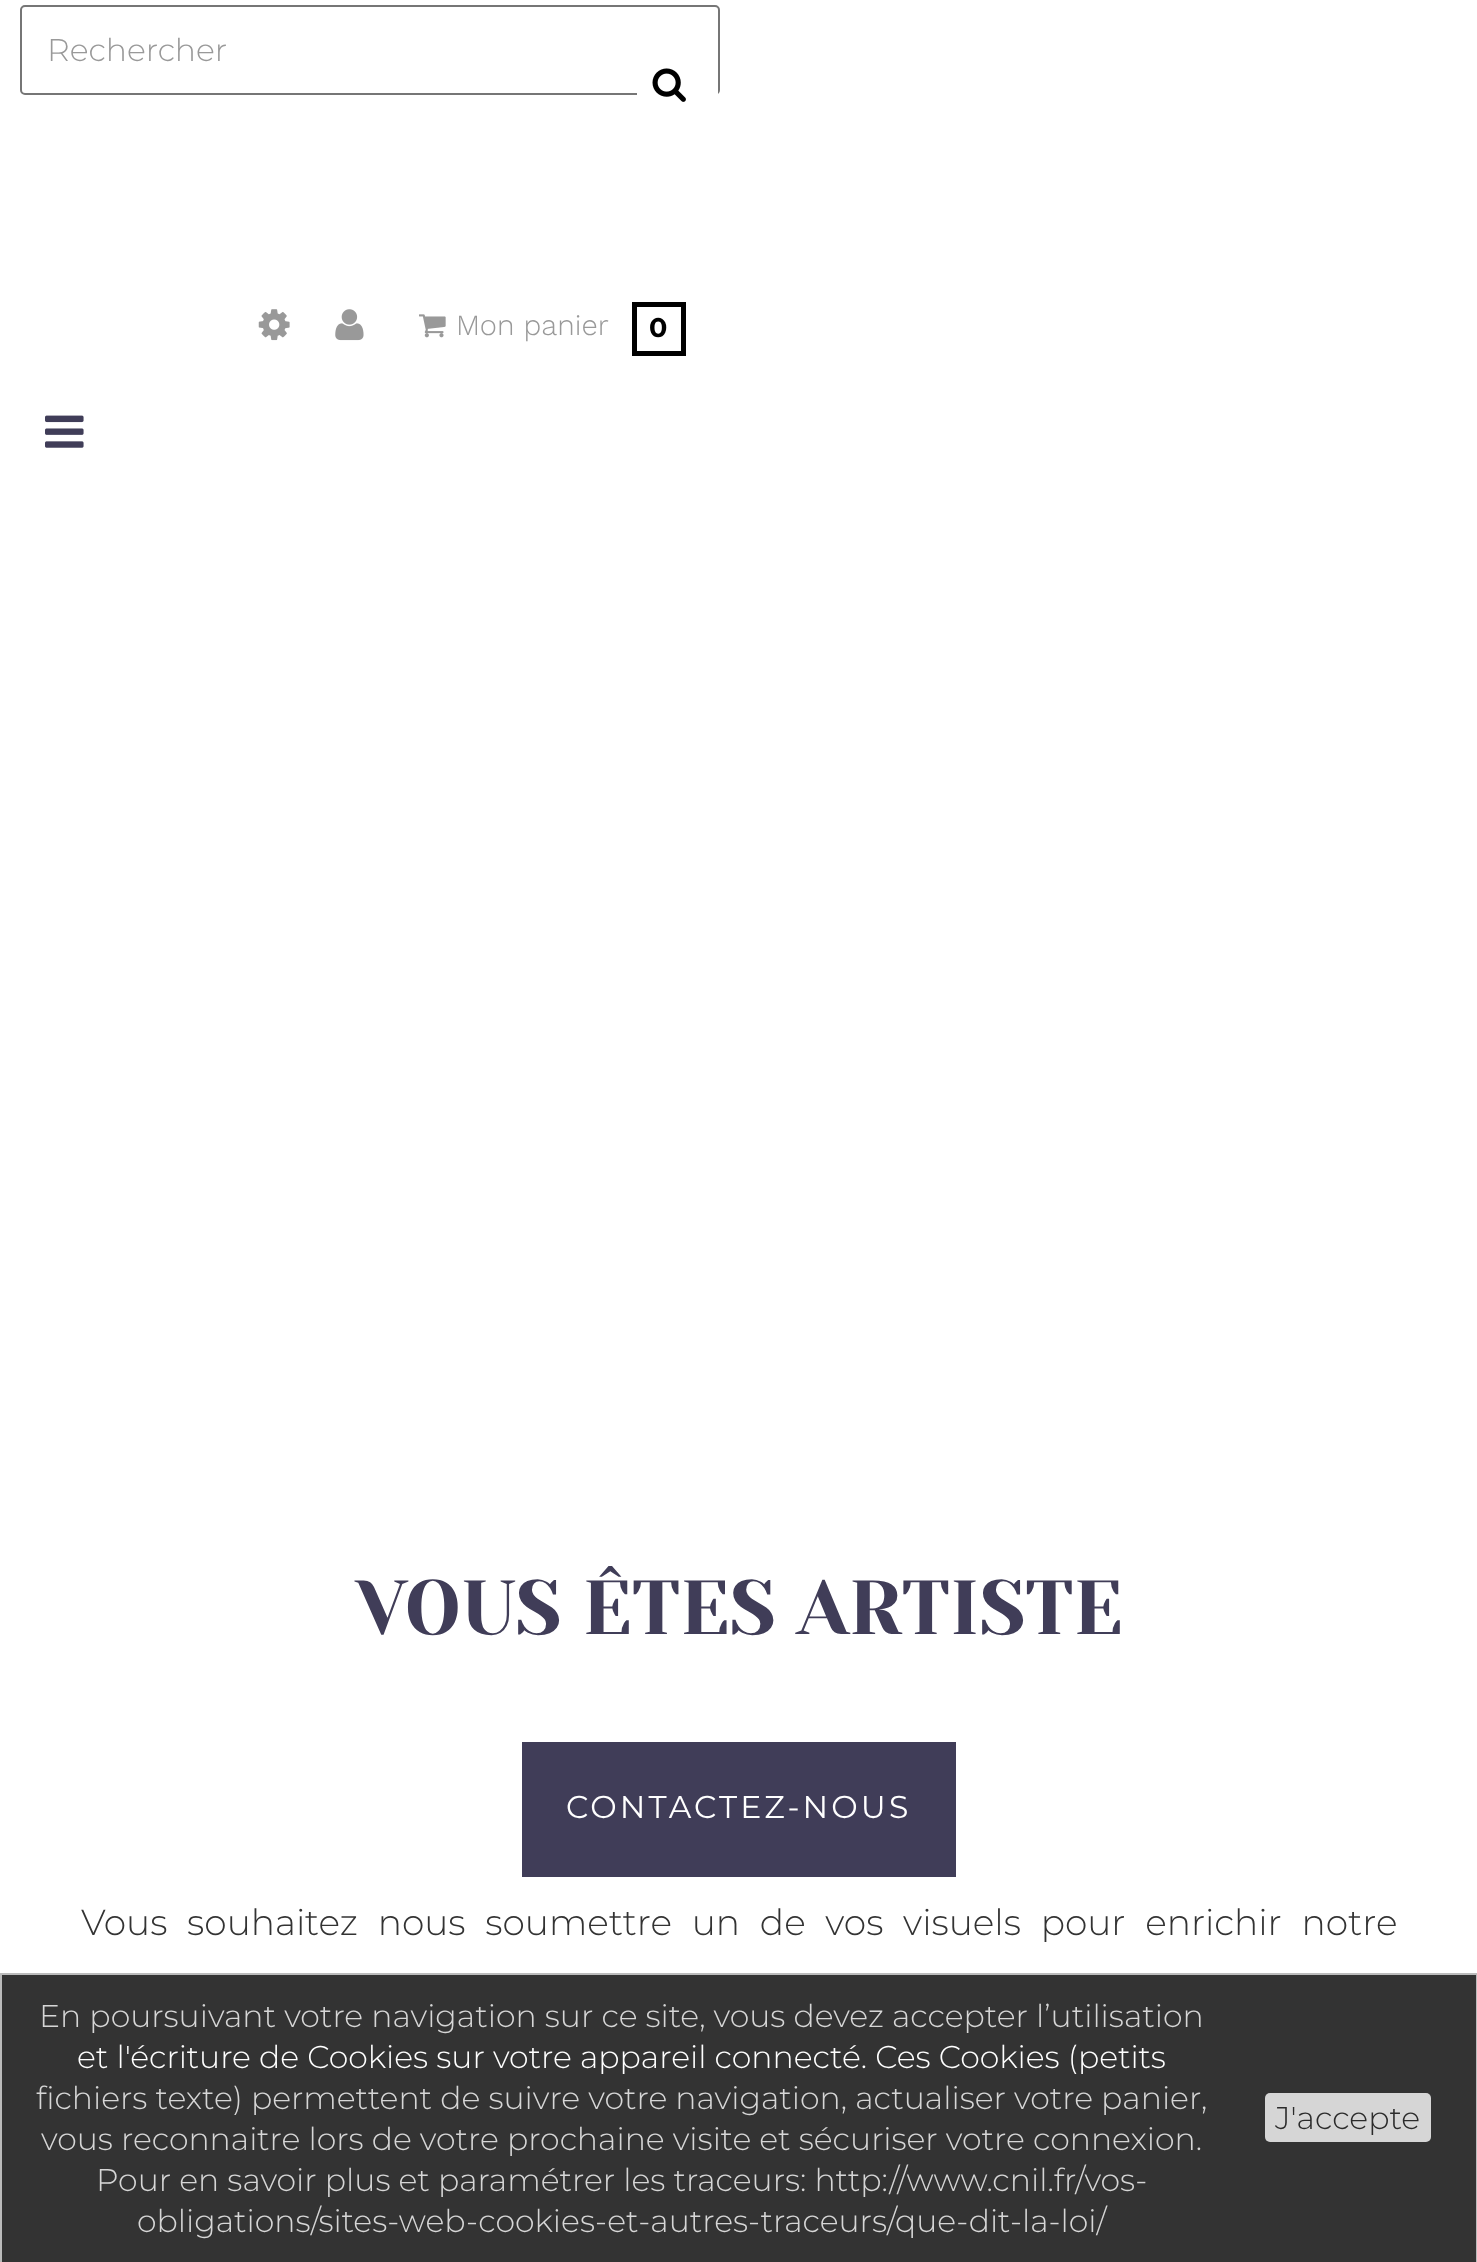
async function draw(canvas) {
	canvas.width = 1477;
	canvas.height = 2262;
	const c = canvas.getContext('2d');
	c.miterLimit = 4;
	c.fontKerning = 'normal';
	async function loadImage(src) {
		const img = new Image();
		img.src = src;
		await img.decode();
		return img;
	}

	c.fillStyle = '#fff';
	c.fillRect(0, 0, 1477, 2262);
	c.beginPath();
	c.roundRect(21, 6, 698, 88, 4);
	c.strokeStyle = '#767676';
	c.lineWidth = 2;
	c.stroke();
	c.font = '300 31.5px Montserrat';
	c.fillStyle = '#999';
	c.fillText('Rechercher', 47, 61);
	c.fillStyle = '#fff';
	c.fillRect(637, 90, 81, 5);
	c.drawImage(await loadImage('img1.png'), 652, 68, 34, 34);
	c.drawImage(await loadImage('img2.png'), 258, 309, 32, 32);
	c.drawImage(await loadImage('img3.png'), 335, 309, 29, 32);
	c.drawImage(await loadImage('img4.png'), 419, 314, 27, 24);
	c.font = '300 29.25px Work Sans';
	c.fillStyle = '#999';
	c.fillText('Mon panier', 456, 335);
	c.strokeStyle = '#000';
	c.lineWidth = 5;
	c.strokeRect(634.5, 304.5, 49, 49);
	c.font = 'bold 27px Montserrat';
	c.fillStyle = '#000';
	c.fillText('0', 649, 337);
	c.drawImage(await loadImage('img5.png'), 45, 415, 39, 33);
	c.save();
	c.beginPath();
	c.rect(81, 1566, 1316, 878);
	c.clip();
	c.font = '76.5px Yeseva One';
	c.fillStyle = '#403d58';
	c.fillText('VOUS ÊTES ARTISTE', 356, 1634);
	c.restore();
	c.fillStyle = '#403d58';
	c.fillRect(522, 1742, 434, 135);
	c.letterSpacing = '3.1px';
	c.font = '31.5px Montserrat';
	c.fillStyle = '#fff';
	c.fillText('CONTACTEZ-NOUS', 566, 1818);
	c.letterSpacing = '0px';
	c.wordSpacing = '10.5px';
	c.font = '300 36px Montserrat';
	c.fillStyle = '#333';
	c.fillText('Vous souhaitez nous soumettre un de vos visuels pour enrichir notre', 81, 1935);
	c.fillStyle = '#000000cc';
	c.fillRect(0, 1973, 1477, 289);
	c.strokeStyle = '#ddddddcc';
	c.lineWidth = 2;
	c.strokeRect(1, 1974, 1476, 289);
	c.wordSpacing = '0px';
	c.font = '300 31.5px Montserrat';
	c.fillStyle = '#d6d6d6';
	c.fillText('En poursuivant votre navigation sur ce site, vous devez accepter l’utilisation', 39, 2027);
	c.fillStyle = '#fff';
	c.fillText('et l\'écriture de Cookies sur votre appareil connecté. Ces Cookies (petits', 77, 2068);
	c.fillStyle = '#d6d6d6';
	for (const [text, x, y] of [
		['fichiers texte) permettent de suivre votre navigation, actualiser votre panier,', 36, 2109],
		['vous reconnaitre lors de votre prochaine visite et sécuriser votre connexion.', 41, 2150],
		['Pour en savoir plus et paramétrer les traceurs: http://www.cnil.fr/vos-', 96, 2191],
		['obligations/sites-web-cookies-et-autres-traceurs/que-dit-la-loi/', 137, 2232],
	]) {
		c.fillText(text, x, y);
	}
	c.fillStyle = '#ffffffcc';
	c.beginPath();
	c.roundRect(1265, 2093, 166, 49, 5);
	c.fill();
	c.fillStyle = '#2b2b2b';
	c.fillText('J\'accepte', 1275, 2129);
}

draw(document.querySelector('canvas'));
